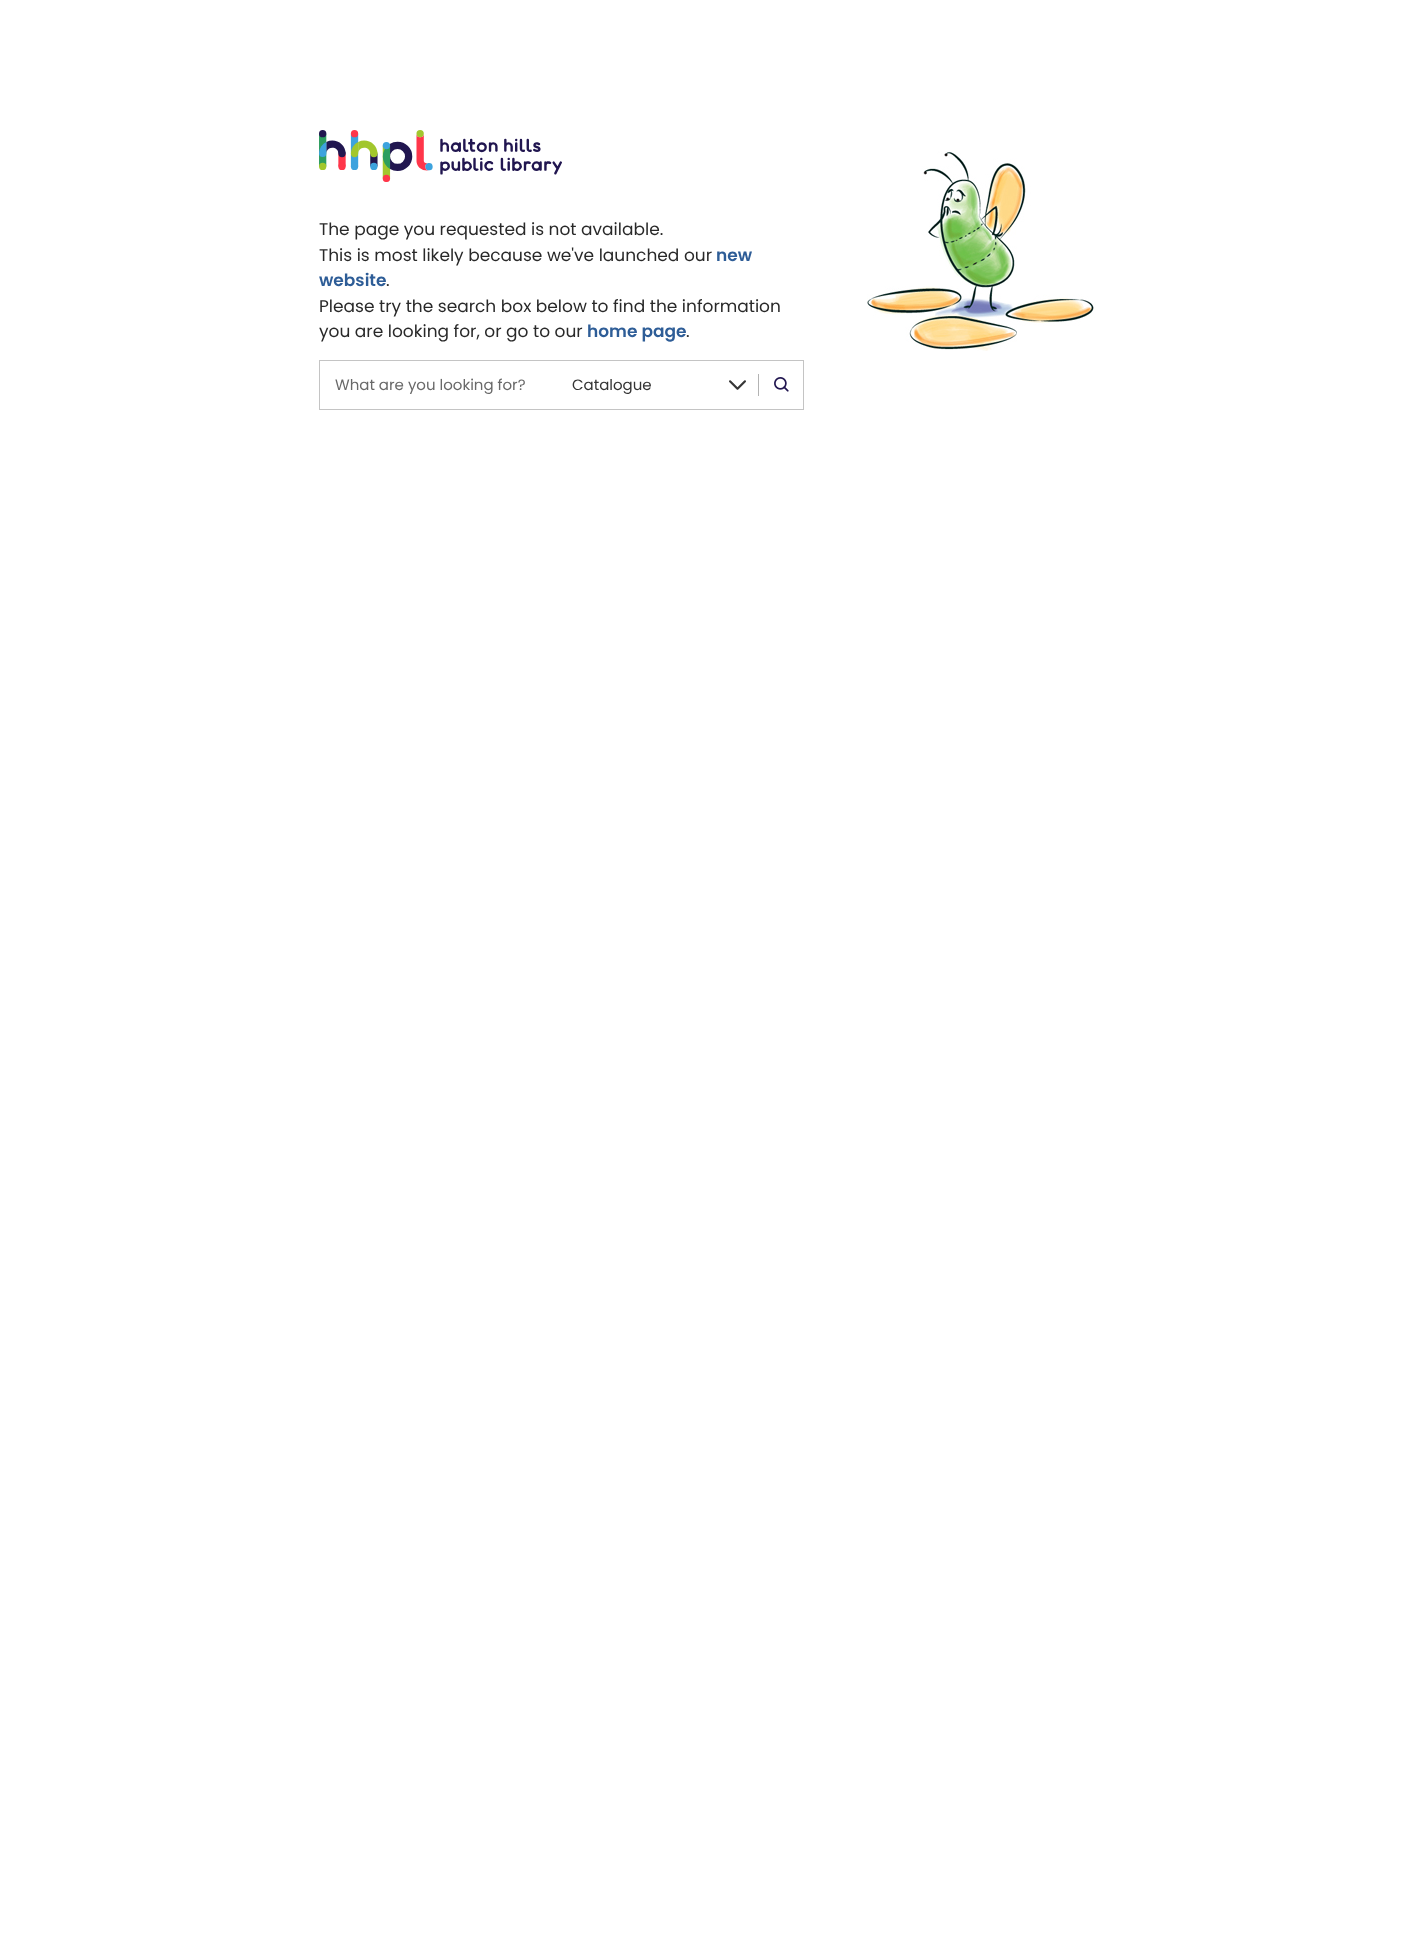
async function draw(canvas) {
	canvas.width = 1407;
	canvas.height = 1934;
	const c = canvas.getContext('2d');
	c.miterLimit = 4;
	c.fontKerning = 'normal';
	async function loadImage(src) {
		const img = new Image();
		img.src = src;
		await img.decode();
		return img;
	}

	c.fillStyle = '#fff';
	c.fillRect(0, 0, 1407, 1934);
	c.drawImage(await loadImage('img1.png'), 867, 151, 229, 200);
	c.drawImage(await loadImage('img2.png'), 319, 130, 243, 52);
	c.font = '17px Poppins';
	c.fillStyle = '#292929';
	c.fillText('The page you requested is not available.', 319, 235);
	c.fillText('This is most likely because we\'ve launched our', 319, 261);
	c.font = '600 17px Poppins';
	c.fillStyle = '#2e5d97';
	c.fillText('new', 716, 261);
	c.fillText('website', 319, 286);
	c.font = '17px Poppins';
	c.fillStyle = '#292929';
	for (const [text, x, y] of [
		['.', 386, 286],
		['Please try the search box below to find the information', 319, 312],
		['you are looking for, or go to our', 319, 337],
	]) {
		c.fillText(text, x, y);
	}
	c.font = '600 17px Poppins';
	c.fillStyle = '#2e5d97';
	c.fillText('home page', 587, 337);
	c.font = '17px Poppins';
	c.fillStyle = '#292929';
	c.fillText('.', 686, 337);
	c.strokeStyle = '#c4c4c4';
	c.strokeRect(319.5, 360.5, 484, 49);
	c.font = '15px Poppins';
	c.fillStyle = '#696969';
	c.fillText('What are you looking for?', 335, 390);
	c.drawImage(await loadImage('img3.png'), 729, 380, 17, 10);
	c.fillStyle = '#b3b3b3';
	c.fillRect(758, 374, 1, 22);
	c.fillStyle = '#343434';
	c.fillText('Catalogue', 572, 390);
	c.drawImage(await loadImage('img4.png'), 774, 377, 15, 15);
}

draw(document.querySelector('canvas'));
